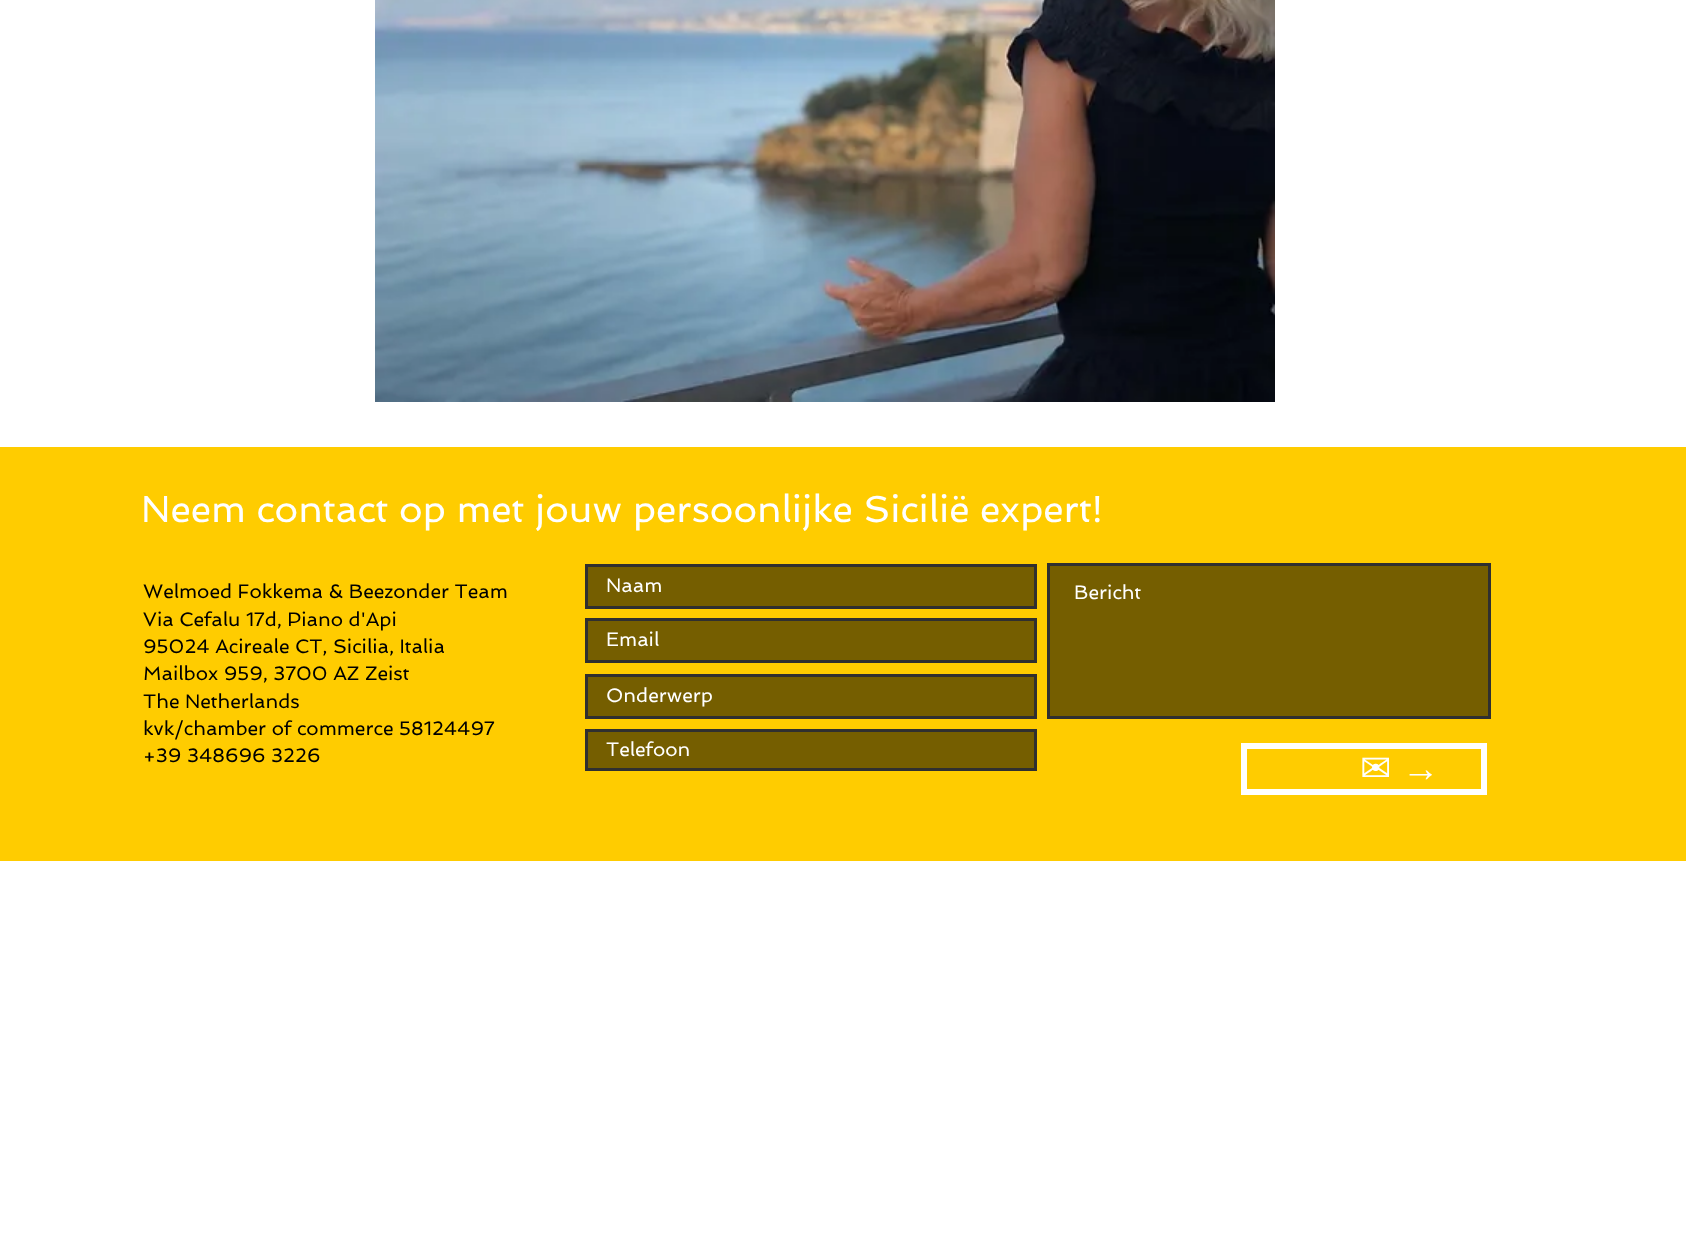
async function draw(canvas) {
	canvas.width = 1686;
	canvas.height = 1235;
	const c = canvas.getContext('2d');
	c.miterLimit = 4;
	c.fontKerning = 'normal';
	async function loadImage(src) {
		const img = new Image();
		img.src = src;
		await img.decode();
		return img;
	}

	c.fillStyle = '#fff';
	c.fillRect(0, 0, 1686, 1235);
	c.drawImage(await loadImage('img1.png'), 375, 0, 900, 402);
	c.fillStyle = '#fc0';
	c.fillRect(0, 447, 1686, 414);
	c.font = '37.5px Spinnaker';
	c.fillStyle = '#fff';
	c.fillText('Neem contact op met jouw persoonlijke Sicilië expert!', 141, 522);
	c.font = '19.5px Spinnaker';
	c.fillStyle = '#000';
	for (const [text, x, y] of [
		['Welmoed Fokkema & Beezonder Team', 143, 598],
		['Via Cefalu 17d, Piano d\'Api', 143, 626],
		['95024 Acireale CT, Sicilia, Italia', 143, 653],
		['Mailbox 959, 3700 AZ Zeist', 143, 680],
		['The Netherlands', 143, 708],
		['kvk/chamber of commerce 58124497', 143, 735],
		['+39 348696 3226', 143, 762],
	]) {
		c.fillText(text, x, y);
	}
	c.fillStyle = '#755e00';
	c.beginPath();
	c.rect(586.5, 565.5, 449, 42);
	c.fill();
	c.strokeStyle = '#2f2f30';
	c.lineWidth = 3;
	c.stroke();
	c.fillStyle = '#fff';
	c.fillText('Naam', 606, 592);
	c.fillStyle = '#755e00';
	c.beginPath();
	c.rect(1048.5, 564.5, 441, 153);
	c.fill();
	c.stroke();
	c.fillStyle = '#fff';
	c.fillText('Bericht', 1074, 599);
	c.fillStyle = '#755e00';
	c.beginPath();
	c.rect(586.5, 619.5, 449, 42);
	c.fill();
	c.stroke();
	c.fillStyle = '#fff';
	c.fillText('Email', 606, 646);
	c.fillStyle = '#755e00';
	c.beginPath();
	c.rect(586.5, 675.5, 449, 42);
	c.fill();
	c.stroke();
	c.fillStyle = '#fff';
	c.fillText('Onderwerp', 606, 702);
	c.fillStyle = '#755e00';
	c.beginPath();
	c.rect(586.5, 730.5, 449, 39);
	c.fill();
	c.stroke();
	c.fillStyle = '#fff';
	c.fillText('Telefoon', 606, 756);
	c.strokeStyle = '#fff';
	c.lineWidth = 6;
	c.strokeRect(1244, 746, 240, 46);
	c.font = '37.5px DejaVu Sans';
	c.fillText('✉', 1360, 781);
	c.font = '37.5px Liberation Sans';
	c.fillText('→', 1402, 781);
}

draw(document.querySelector('canvas'));
